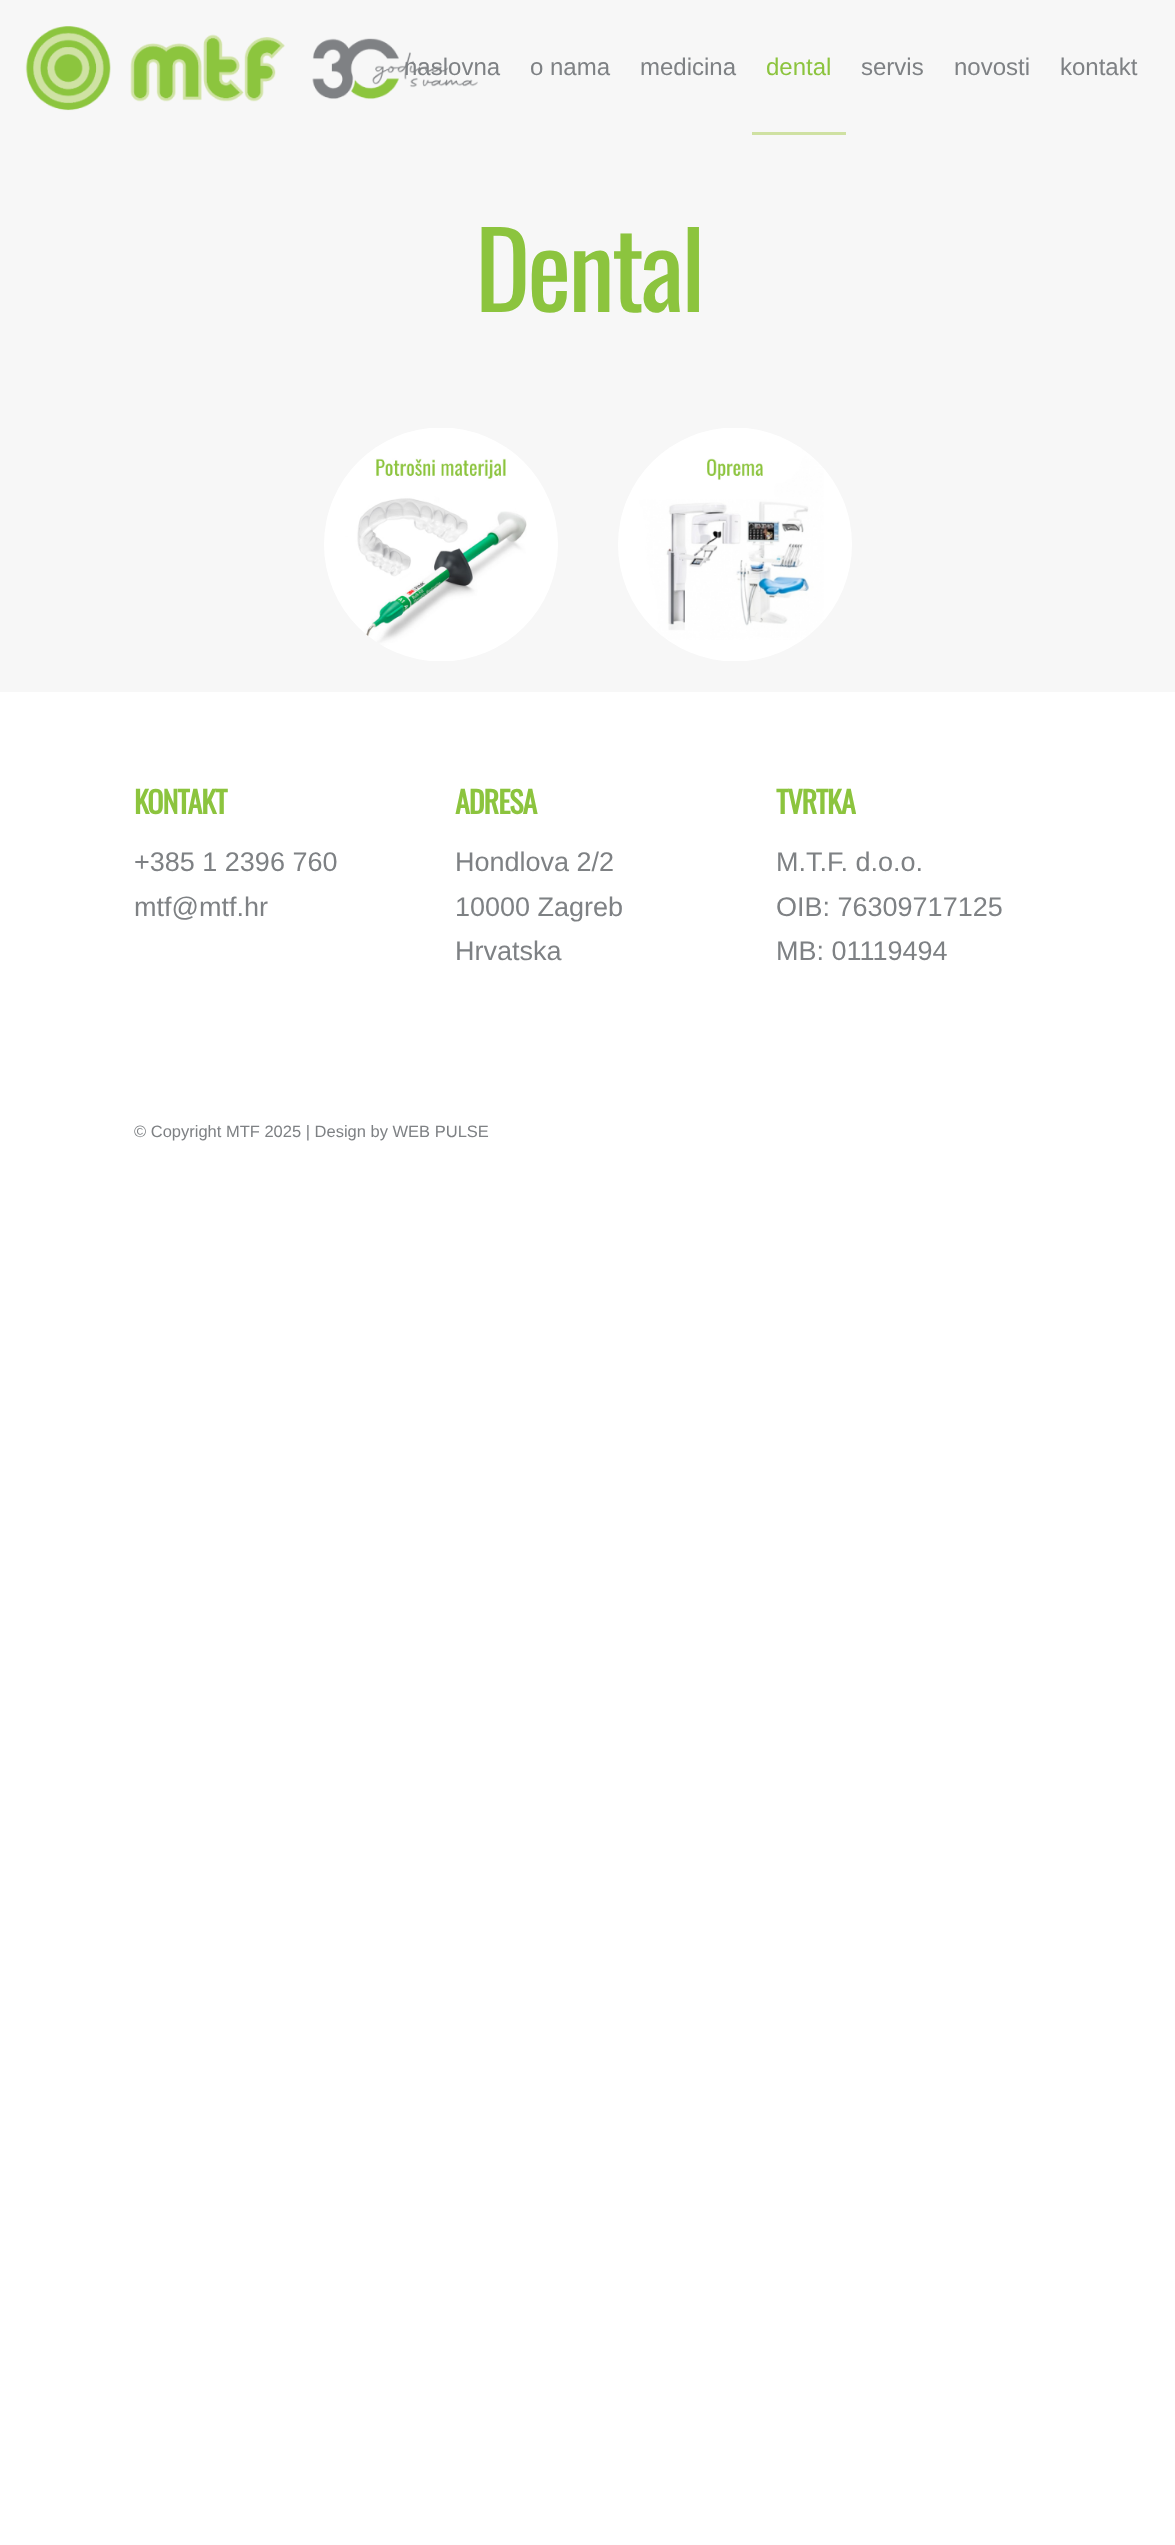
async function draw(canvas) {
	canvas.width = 1175;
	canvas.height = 2545;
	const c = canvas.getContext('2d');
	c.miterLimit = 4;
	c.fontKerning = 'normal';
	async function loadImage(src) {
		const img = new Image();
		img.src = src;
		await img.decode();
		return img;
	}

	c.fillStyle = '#fff';
	c.fillRect(0, 0, 1175, 2545);
	c.fillStyle = '#f7f7f7';
	c.fillRect(0, 0, 1175, 692);
	c.drawImage(await loadImage('img1.png'), 25, 26, 453, 85);
	c.font = '24px Liberation Sans';
	c.fillStyle = '#7e8184';
	for (const [text, x, y] of [
		['naslovna', 404, 75],
		['o nama', 530, 75],
		['medicina', 640, 75],
	]) {
		c.fillText(text, x, y);
	}
	c.fillStyle = '#8cc43e';
	c.fillText('dental', 766, 75);
	c.fillStyle = '#cfe1a2';
	c.fillRect(752, 132, 94, 3);
	c.fillStyle = '#7e8184';
	for (const [text, x, y] of [
		['servis', 861, 75],
		['novosti', 954, 75],
		['kontakt', 1060, 75],
	]) {
		c.fillText(text, x, y);
	}
	c.letterSpacing = '-3px';
	c.font = '105px Oswald';
	c.fillStyle = '#8cc43e';
	c.fillText('Dental', 475, 312);
	c.drawImage(await loadImage('img2.png'), 324, 428, 234, 233);
	c.drawImage(await loadImage('img3.png'), 618, 428, 234, 233);
	c.letterSpacing = '-1px';
	c.font = 'bold 30px Oswald';
	c.fillText('KONTAKT', 134, 814);
	c.letterSpacing = '0px';
	c.font = '27px Liberation Sans';
	c.fillStyle = '#7e8184';
	c.fillText('+385 1 2396 760', 134, 871);
	c.fillText('mtf@mtf.hr', 134, 916);
	c.letterSpacing = '-1px';
	c.font = 'bold 30px Oswald';
	c.fillStyle = '#8cc43e';
	c.fillText('ADRESA', 455, 814);
	c.letterSpacing = '0px';
	c.font = '27px Liberation Sans';
	c.fillStyle = '#7e8184';
	for (const [text, x, y] of [
		['Hondlova 2/2', 455, 871],
		['10000 Zagreb', 455, 916],
		['Hrvatska', 455, 960],
	]) {
		c.fillText(text, x, y);
	}
	c.letterSpacing = '-1px';
	c.font = 'bold 30px Oswald';
	c.fillStyle = '#8cc43e';
	c.fillText('TVRTKA', 776, 814);
	c.letterSpacing = '0px';
	c.font = '27px Liberation Sans';
	c.fillStyle = '#7e8184';
	for (const [text, x, y] of [
		['M.T.F. d.o.o.', 776, 871],
		['OIB: 76309717125', 776, 916],
		['MB: 01119494', 776, 960],
	]) {
		c.fillText(text, x, y);
	}
	c.font = '16.5px Liberation Sans';
	c.fillText('© Copyright MTF 2025 | Design by WEB PULSE', 134, 1137);
}

draw(document.querySelector('canvas'));
